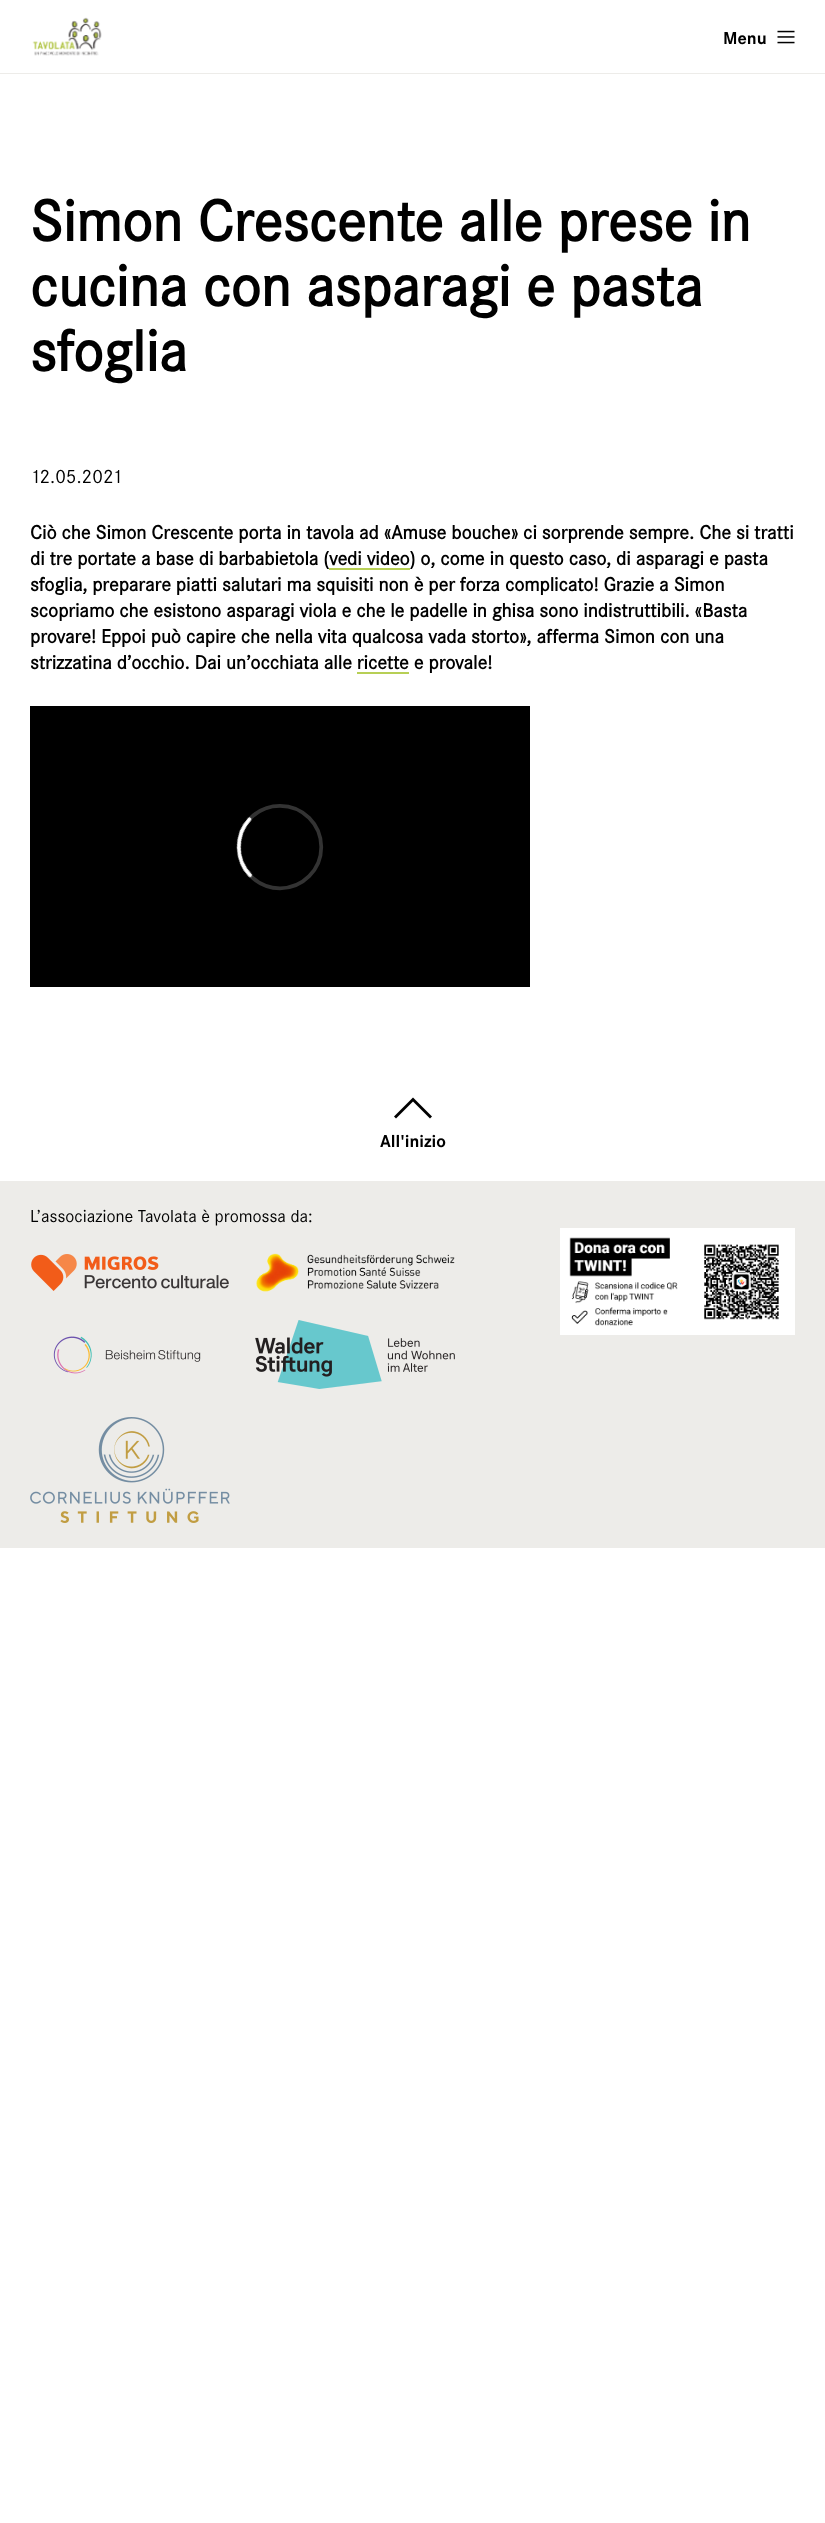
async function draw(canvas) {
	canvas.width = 825;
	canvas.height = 2523;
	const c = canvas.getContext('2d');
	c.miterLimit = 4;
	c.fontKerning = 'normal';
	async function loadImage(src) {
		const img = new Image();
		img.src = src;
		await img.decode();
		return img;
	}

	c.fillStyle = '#fff';
	c.fillRect(0, 0, 825, 2523);
	c.fillStyle = '#edece9';
	c.fillRect(0, 73, 825, 1);
	c.drawImage(await loadImage('img1.png'), 32, 17, 70, 39);
	c.font = 'bold 18px "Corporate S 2"';
	c.fillStyle = '#000';
	c.fillText('Menu', 723, 44);
	c.drawImage(await loadImage('img2.png'), 777, 30, 18, 14);
	c.font = 'bold 60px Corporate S';
	for (const [text, x, y] of [
		['Simon Crescente alle prese in', 30, 241],
		['cucina con asparagi e pasta', 30, 306],
		['sfoglia', 30, 371],
	]) {
		c.fillText(text, x, y);
	}
	c.font = '20px Corporate S';
	c.fillText('12.05.2021', 30, 483);
	c.font = 'bold 20px Corporate S';
	c.fillText('Ciò che Simon Crescente porta in tavola ad «Amuse bouche» ci sorprende sempre. Che si tratti', 30, 539);
	c.fillText('di tre portate a base di barbabietola (vedi video) o, come in questo caso, di asparagi e pasta', 30, 565);
	c.fillStyle = '#b7cf55';
	c.fillRect(329, 568, 81, 2);
	c.fillStyle = '#000';
	for (const [text, x, y] of [
		['sfoglia, preparare piatti salutari ma squisiti non è per forza complicato! Grazie a Simon', 30, 591],
		['scopriamo che esistono asparagi viola e che le padelle in ghisa sono indistruttibili. «Basta', 30, 617],
		['provare! Eppoi può capire che nella vita qualcosa vada storto», afferma Simon con una', 30, 643],
		['strizzatina d’occhio. Dai un’occhiata alle ricette e provale!', 30, 669],
	]) {
		c.fillText(text, x, y);
	}
	c.fillStyle = '#b7cf55';
	c.fillRect(357, 672, 52, 2);
	c.drawImage(await loadImage('img3.png'), 30, 706, 500, 281);
	c.fillStyle = '#000';
	c.beginPath();
	c.moveTo(396, 1118.5);
	c.lineTo(394, 1116.5);
	c.lineTo(413, 1097.5);
	c.lineTo(432, 1116.5);
	c.lineTo(430, 1118.5);
	c.lineTo(413, 1101.5);
	c.closePath();
	c.fill();
	c.font = 'bold 18px "Corporate S 2"';
	c.fillText('All\'inizio', 380, 1147);
	c.fillStyle = '#edece9';
	c.fillRect(0, 1181, 825, 367);
	c.font = '18px Corporate S';
	c.fillStyle = '#000';
	c.fillText('L’associazione Tavolata è promossa da:', 30, 1222);
	c.drawImage(await loadImage('img4.png'), 31, 1254, 198, 37);
	c.drawImage(await loadImage('img5.png'), 256, 1253, 199, 39);
	c.drawImage(await loadImage('img6.png'), 53, 1336, 148, 38);
	c.drawImage(await loadImage('img7.png'), 255, 1320, 200, 69);
	c.drawImage(await loadImage('img8.png'), 30, 1417, 200, 106);
	c.drawImage(await loadImage('img9.png'), 560, 1228, 235, 107);
}

draw(document.querySelector('canvas'));
